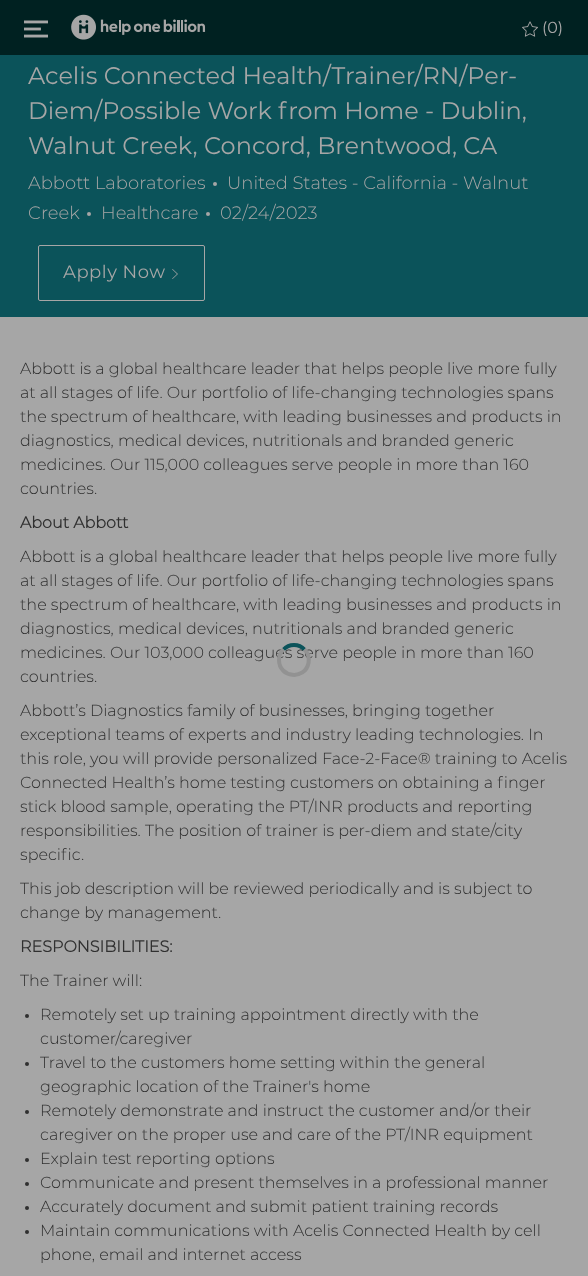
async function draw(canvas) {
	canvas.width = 588;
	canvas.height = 1276;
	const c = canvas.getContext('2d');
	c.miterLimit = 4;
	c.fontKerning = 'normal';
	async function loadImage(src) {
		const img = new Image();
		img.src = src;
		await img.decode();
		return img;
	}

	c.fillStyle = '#a6a6a6';
	c.fillRect(0, 0, 588, 1276);
	c.fillStyle = '#002121';
	c.fillRect(0, 0, 588, 55);
	c.drawImage(await loadImage('img1.png'), 24, 20, 24, 18);
	c.drawImage(await loadImage('img2.png'), 71, 14, 135, 26);
	c.drawImage(await loadImage('img3.png'), 522, 21, 16, 16);
	c.font = '16px Montserrat';
	c.fillStyle = '#a6a6a6';
	c.fillText('(0)', 542, 33);
	c.fillStyle = '#0b535a';
	c.fillRect(0, 55, 588, 262);
	c.font = '24px Montserrat';
	c.fillStyle = '#a6a6a6';
	for (const [text, x, y] of [
		['Acelis Connected Health/Trainer/RN/Per-', 28, 84],
		['Diem/Possible Work from Home - Dublin,', 28, 119],
		['Walnut Creek, Concord, Brentwood, CA', 28, 154],
	]) {
		c.fillText(text, x, y);
	}
	c.font = '300 18px Montserrat';
	c.fillText('Abbott Laboratories', 28, 189);
	c.beginPath();
	c.arc(215, 184, 2, 0, 2 * Math.PI);
	c.fill();
	c.fillText('United States - California - Walnut', 227, 189);
	c.fillText('Creek', 28, 219);
	c.beginPath();
	c.arc(89, 214, 2, 0, 2 * Math.PI);
	c.fill();
	c.fillText('Healthcare', 101, 219);
	c.beginPath();
	c.arc(208, 214, 2, 0, 2 * Math.PI);
	c.fill();
	c.fillText('02/24/2023', 220, 219);
	c.beginPath();
	c.roundRect(38.5, 245.5, 166, 55, 1.5);
	c.strokeStyle = '#a6a6a6';
	c.stroke();
	c.letterSpacing = '0.5px';
	c.font = '18px Montserrat';
	c.fillText('Apply Now', 63, 278);
	c.drawImage(await loadImage('img4.png'), 172, 269, 6, 10);
	c.letterSpacing = '0px';
	c.font = '300 16px Montserrat';
	c.fillStyle = '#303030';
	for (const [text, x, y] of [
		['Abbott is a global healthcare leader that helps people live more fully', 20, 374],
		['at all stages of life. Our portfolio of life-changing technologies spans', 20, 398],
		['the spectrum of healthcare, with leading businesses and products in', 20, 422],
		['diagnostics, medical devices, nutritionals and branded generic', 20, 446],
		['medicines. Our 115,000 colleagues serve people in more than 160', 20, 470],
		['countries.', 20, 494],
	]) {
		c.fillText(text, x, y);
	}
	c.font = 'bold 16px Montserrat';
	c.fillText('About Abbott', 20, 528);
	c.font = '300 16px Montserrat';
	for (const [text, x, y] of [
		['Abbott is a global healthcare leader that helps people live more fully', 20, 562],
		['at all stages of life. Our portfolio of life-changing technologies spans', 20, 586],
		['the spectrum of healthcare, with leading businesses and products in', 20, 610],
		['diagnostics, medical devices, nutritionals and branded generic', 20, 634],
		['medicines. Our 103,000 colleagues serve people in more than 160', 20, 658],
		['countries.', 20, 682],
		['Abbott’s Diagnostics family of businesses, bringing together', 20, 716],
		['exceptional teams of experts and industry leading technologies. In', 20, 740],
		['this role, you will provide personalized Face-2-Face® training to Acelis', 20, 764],
		['Connected Health’s home testing customers on obtaining a finger', 20, 788],
		['stick blood sample, operating the PT/INR products and reporting', 20, 812],
		['responsibilities. The position of trainer is per-diem and state/city', 20, 836],
		['specific.', 20, 860],
		['This job description will be reviewed periodically and is subject to', 20, 894],
		['change by management.', 20, 918],
	]) {
		c.fillText(text, x, y);
	}
	c.font = 'bold 16px Montserrat';
	c.fillText('RESPONSIBILITIES:', 20, 952);
	c.font = '300 16px Montserrat';
	c.fillText('The Trainer will:', 20, 986);
	c.beginPath();
	c.arc(27, 1016, 2, 0, 2 * Math.PI);
	c.fill();
	c.fillText('Remotely set up training appointment directly with the', 40, 1020);
	c.fillText('customer/caregiver', 40, 1044);
	c.beginPath();
	c.arc(27, 1064, 2, 0, 2 * Math.PI);
	c.fill();
	c.fillText('Travel to the customers home setting within the general', 40, 1068);
	c.fillText('geographic location of the Trainer\'s home', 40, 1092);
	c.beginPath();
	c.arc(27, 1112, 2, 0, 2 * Math.PI);
	c.fill();
	c.fillText('Remotely demonstrate and instruct the customer and/or their', 40, 1116);
	c.fillText('caregiver on the proper use and care of the PT/INR equipment', 40, 1140);
	c.beginPath();
	c.arc(27, 1160, 2, 0, 2 * Math.PI);
	c.fill();
	c.fillText('Explain test reporting options', 40, 1164);
	c.beginPath();
	c.arc(27, 1184, 2, 0, 2 * Math.PI);
	c.fill();
	c.fillText('Communicate and present themselves in a professional manner', 40, 1188);
	c.beginPath();
	c.arc(27, 1208, 2, 0, 2 * Math.PI);
	c.fill();
	c.fillText('Accurately document and submit patient training records', 40, 1212);
	c.beginPath();
	c.arc(27, 1232, 2, 0, 2 * Math.PI);
	c.fill();
	c.fillText('Maintain communications with Acelis Connected Health by cell', 40, 1236);
	c.fillText('phone, email and internet access', 40, 1260);
	c.beginPath();
	c.moveTo(283.5, 649.5);
	c.bezierCurveTo(289, 643.5, 299, 643.5, 304.5, 649.5);
	c.strokeStyle = '#0b535a';
	c.lineWidth = 4;
	c.stroke();
	c.beginPath();
	c.moveTo(304.5, 649.5);
	c.bezierCurveTo(308, 653, 309.5, 658, 308.5, 663);
	c.bezierCurveTo(305, 680.5, 279, 678, 279, 660);
	c.bezierCurveTo(279, 656, 280.5, 652, 283.5, 649.5);
	c.strokeStyle = '#929292';
	c.stroke();
}

draw(document.querySelector('canvas'));
